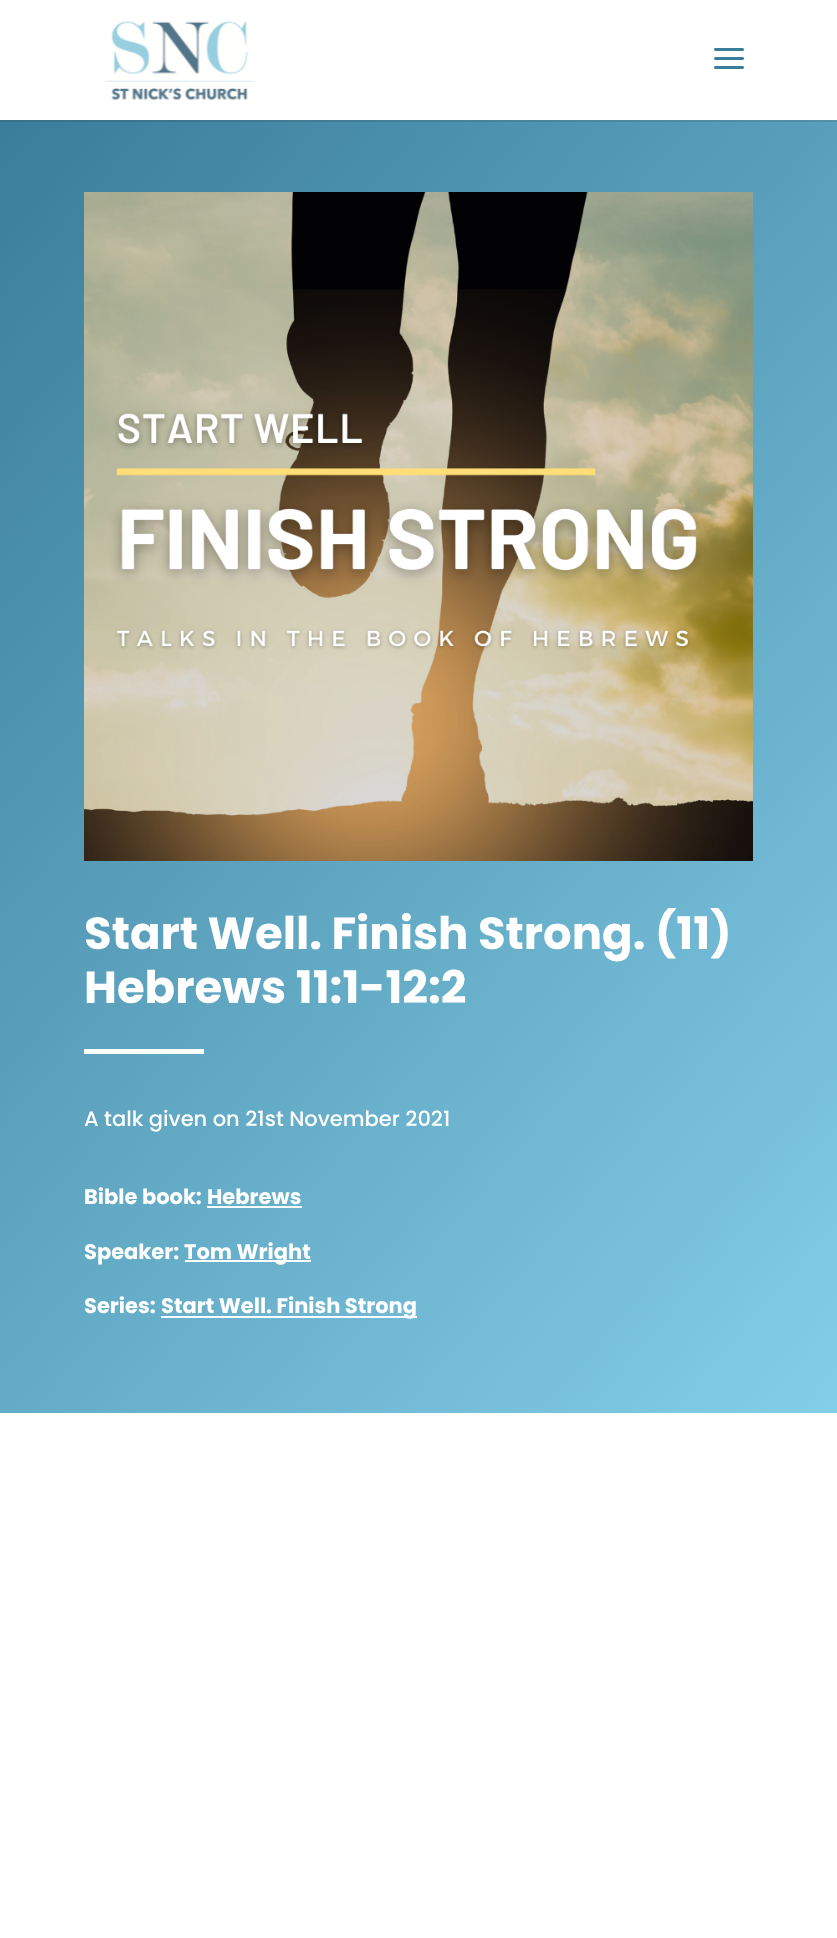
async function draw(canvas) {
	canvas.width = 837;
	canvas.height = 1938;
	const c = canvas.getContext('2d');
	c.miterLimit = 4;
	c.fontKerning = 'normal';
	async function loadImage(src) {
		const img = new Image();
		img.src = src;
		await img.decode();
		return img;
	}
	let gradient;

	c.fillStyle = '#fff';
	c.fillRect(0, 0, 837, 1938);
	c.drawImage(await loadImage('img1.png'), 105, 21, 150, 80);
	c.drawImage(await loadImage('img2.png'), 714, 48, 30, 21);
	gradient = c.createLinearGradient(-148, 287, 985, 1273);
	gradient.addColorStop(0, '#3a7d9a');
	gradient.addColorStop(1, '#85cfe9');
	c.fillStyle = gradient;
	c.fillRect(0, 122, 837, 1291);
	gradient = c.createLinearGradient(-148, 287, 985, 1273);
	gradient.addColorStop(0, '#34718b');
	gradient.addColorStop(1, '#78bad2');
	c.fillStyle = gradient;
	c.fillRect(0, 120, 837, 2);
	c.drawImage(await loadImage('img3.png'), 84, 192, 669, 669);
	c.font = 'bold 45px Poppins';
	c.fillStyle = '#fff';
	c.fillText('Start Well. Finish Strong. (11)', 84, 949);
	c.fillText('Hebrews 11:1-12:2', 84, 1003);
	c.fillRect(84, 1049, 120, 5);
	c.font = '500 21px Poppins';
	c.fillText('A talk given on 21st November 2021', 84, 1126);
	c.font = 'bold 21px Poppins';
	c.fillText('Bible book:', 84, 1204);
	c.fillText('Hebrews', 207, 1204);
	c.fillRect(207, 1206, 95, 2);
	c.fillText('Speaker:', 84, 1259);
	c.fillRect(185, 1260, 126, 2);
	c.fillText('Tom Wright', 184, 1259);
	c.fillText('Series:', 84, 1313);
	c.fillRect(161, 1316, 256, 2);
	c.fillText('Start Well. Finish Strong', 161, 1313);
}

draw(document.querySelector('canvas'));
